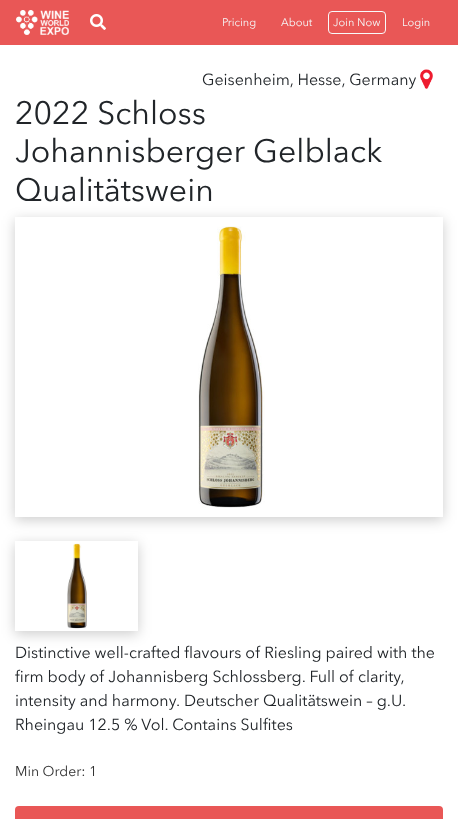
async function draw(canvas) {
	canvas.width = 458;
	canvas.height = 819;
	const c = canvas.getContext('2d');
	c.miterLimit = 4;
	c.fontKerning = 'normal';
	async function loadImage(src) {
		const img = new Image();
		img.src = src;
		await img.decode();
		return img;
	}

	c.fillStyle = '#fff';
	c.fillRect(0, 0, 458, 819);
	c.fillStyle = '#e95756';
	c.fillRect(0, 0, 458, 45);
	c.drawImage(await loadImage('img1.png'), 16, 10, 53, 25);
	c.drawImage(await loadImage('img2.png'), 90, 14, 16, 16);
	c.font = '11px "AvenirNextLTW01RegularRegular"';
	c.fillStyle = '#f5f5f5';
	c.fillText('Pricing', 222, 26);
	c.fillText('About', 281, 26);
	c.beginPath();
	c.roundRect(328.5, 11.5, 57, 22, 3.5);
	c.strokeStyle = '#f8f9fa';
	c.stroke();
	c.fillText('Join Now', 333, 26);
	c.fillText('Login', 402, 26);
	c.font = '16px "AvenirNextLTW01RegularRegular"';
	c.fillStyle = '#212529';
	c.fillText('Geisenheim, Hesse, Germany', 202, 85);
	c.drawImage(await loadImage('img3.png'), 420, 69, 13, 20);
	c.font = '32px "AvenirNextLTW01RegularRegular"';
	for (const [text, x, y] of [
		['2022 Schloss', 15, 124],
		['Johannisberger Gelblack', 15, 162],
		['Qualitätswein', 15, 201],
	]) {
		c.fillText(text, x, y);
	}
	c.save();
	c.beginPath();
	c.moveTo(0, 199);
	c.lineTo(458, 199);
	c.lineTo(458, 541);
	c.lineTo(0, 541);
	c.closePath();
	c.moveTo(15, 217);
	c.lineTo(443, 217);
	c.lineTo(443, 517);
	c.lineTo(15, 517);
	c.closePath();
	c.clip('evenodd');
	c.fillStyle = '#00000033';
	c.filter = 'blur(6.5px)';
	c.beginPath();
	c.rect(15, 220, 428, 300);
	c.fill();
	c.filter = 'none';
	c.restore();
	c.drawImage(await loadImage('img4.png'), 198, 226, 67, 282);
	c.save();
	c.beginPath();
	c.moveTo(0, 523);
	c.lineTo(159, 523);
	c.lineTo(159, 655);
	c.lineTo(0, 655);
	c.closePath();
	c.moveTo(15, 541);
	c.lineTo(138, 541);
	c.lineTo(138, 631);
	c.lineTo(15, 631);
	c.closePath();
	c.clip('evenodd');
	c.fillStyle = '#00000033';
	c.filter = 'blur(6.5px)';
	c.beginPath();
	c.rect(15, 544, 123, 90);
	c.fill();
	c.filter = 'none';
	c.restore();
	c.drawImage(await loadImage('img5.png'), 67, 543, 20, 86);
	c.font = '16px "AvenirNextLTW01RegularRegular"';
	for (const [text, x, y] of [
		['Distinctive well-crafted flavours of Riesling paired with the', 15, 658],
		['firm body of Johannisberg Schlossberg. Full of clarity,', 15, 682],
		['intensity and harmony.', 15, 706],
		['Deutscher Qualitätswein – g.U.', 184, 706],
		['Rheingau 12.5 % Vol. Contains Sulfites', 15, 730],
	]) {
		c.fillText(text, x, y);
	}
	c.font = '14px "AvenirNextLTW01RegularRegular"';
	c.fillStyle = '#333';
	c.fillText('Min Order: 1', 15, 776);
	c.fillStyle = '#e95756';
	c.beginPath();
	c.roundRect(15, 806, 428, 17, 4);
	c.fill();
}

draw(document.querySelector('canvas'));
